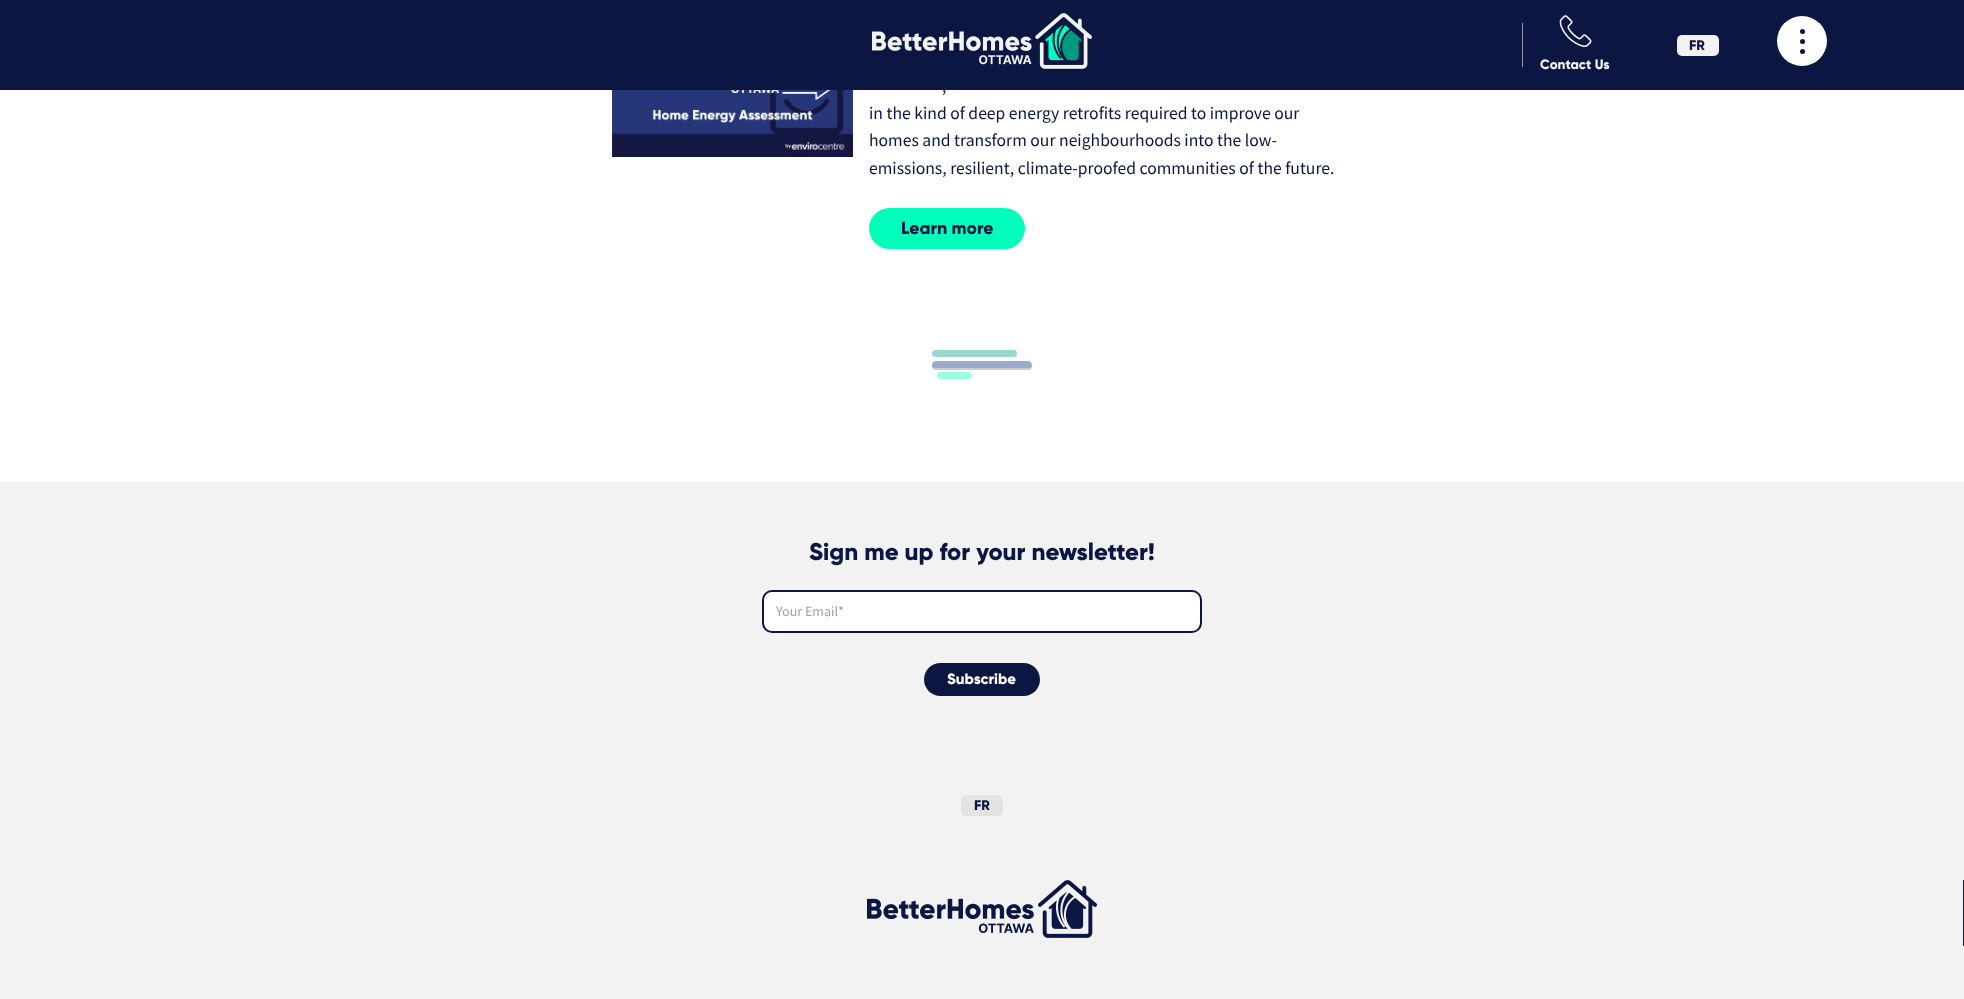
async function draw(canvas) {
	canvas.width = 1964;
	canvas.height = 999;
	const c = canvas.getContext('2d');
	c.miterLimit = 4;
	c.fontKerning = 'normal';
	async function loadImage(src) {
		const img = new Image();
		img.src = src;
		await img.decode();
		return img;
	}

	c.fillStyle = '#fff';
	c.fillRect(0, 0, 1964, 999);
	c.fillStyle = '#0c1643';
	c.fillRect(0, 0, 1964, 90);
	c.drawImage(await loadImage('img1.png'), 872, 13, 220, 56);
	c.fillStyle = '#f2f2f2';
	c.beginPath();
	c.roundRect(1677, 35, 42, 21, 5);
	c.fill();
	c.font = '800 14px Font';
	c.fillStyle = '#0c1643';
	c.fillText('FR', 1689, 50);
	c.fillStyle = '#fff';
	c.beginPath();
	c.arc(1802, 41, 25, 0, 2 * Math.PI);
	c.fill();
	c.fillStyle = '#0c1643';
	c.beginPath();
	c.arc(1802.5, 41.5, 2.5, 0, 2 * Math.PI);
	c.fill();
	c.beginPath();
	c.arc(1802.5, 31.5, 2.5, 0, 2 * Math.PI);
	c.fill();
	c.beginPath();
	c.arc(1802.5, 51.5, 2.5, 0, 2 * Math.PI);
	c.fill();
	c.fillStyle = '#969aac';
	c.fillRect(1522, 23, 1, 44);
	c.drawImage(await loadImage('img2.png'), 1559, 15, 33, 32);
	c.font = '800 13.5px Font';
	c.fillStyle = '#f2f2f2';
	c.fillText('Contact Us', 1540, 69);
	c.drawImage(await loadImage('img3.png'), 612, 90, 241, 67);
	c.font = '17.6px Source Sans Pro';
	c.fillStyle = '#0c1643';
	for (const [text, x, y] of [
		[',', 942, 92],
		['in the kind of deep energy retrofits required to improve our', 869, 119],
		['homes and transform our neighbourhoods into the low-', 869, 146],
		['emissions, resilient, climate-proofed communities of the future.', 869, 174],
	]) {
		c.fillText(text, x, y);
	}
	c.fillStyle = '#0fb';
	c.beginPath();
	c.roundRect(869, 208, 156, 41, 20.5);
	c.fill();
	c.font = '800 17.6px Font';
	c.fillStyle = '#0c1643';
	c.fillText('Learn more', 901, 234);
	c.fillStyle = '#9ac';
	c.beginPath();
	c.roundRect(932, 361, 100, 9, 4.5);
	c.fill();
	c.fillStyle = '#ccc';
	c.fillRect(934, 368, 96, 2);
	c.fillStyle = '#99d7cc';
	c.beginPath();
	c.roundRect(932, 350, 85, 7, 3.5);
	c.fill();
	c.fillStyle = '#99ffe4';
	c.beginPath();
	c.roundRect(937, 372, 35, 7, 3.5);
	c.fill();
	c.fillStyle = '#f2f2f2';
	c.fillRect(0, 482, 1964, 517);
	c.font = '800 24px Font';
	c.fillStyle = '#0c1643';
	c.fillText('Sign me up for your newsletter!', 809, 560);
	c.fillStyle = '#fff';
	c.beginPath();
	c.roundRect(763, 591, 438, 41, 9);
	c.fill();
	c.strokeStyle = '#0c1643';
	c.lineWidth = 2;
	c.stroke();
	c.font = '14px Source Sans Pro';
	c.fillStyle = '#a1a1a1';
	c.fillText('Your Email*', 776, 616);
	c.fillStyle = '#0c1643';
	c.beginPath();
	c.roundRect(924, 663, 116, 33, 16.5);
	c.fill();
	c.font = '800 15px Font';
	c.fillStyle = '#fff';
	c.fillText('Subscribe', 947, 684);
	c.fillStyle = '#e3e3e3';
	c.beginPath();
	c.roundRect(961, 795, 42, 21, 5);
	c.fill();
	c.font = '800 14px Font';
	c.fillStyle = '#0c1643';
	c.fillText('FR', 974, 810);
	c.fillRect(1963, 880, 1, 66);
	c.drawImage(await loadImage('img4.png'), 867, 880, 230, 58);
}

draw(document.querySelector('canvas'));
